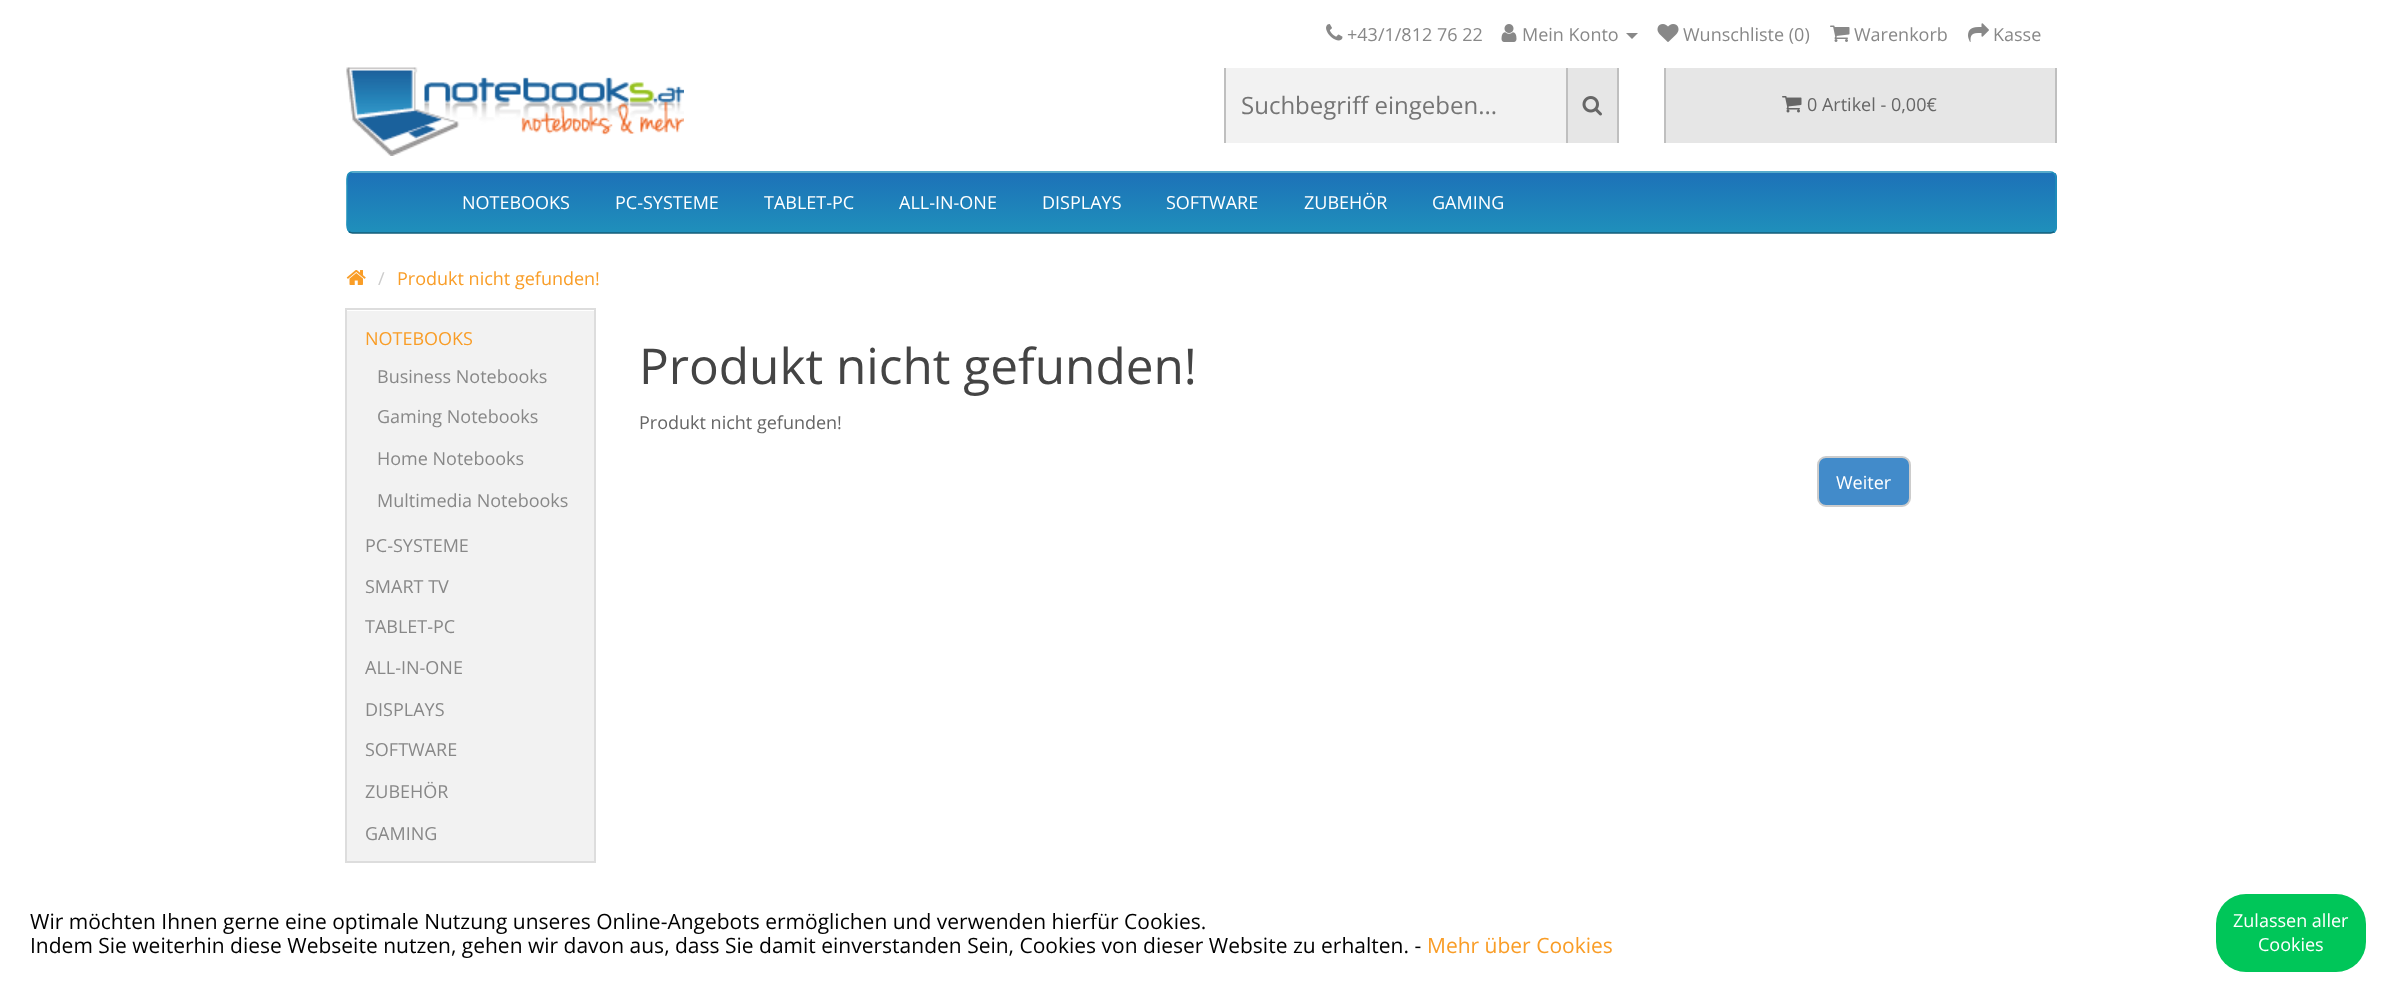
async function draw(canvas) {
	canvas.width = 2403;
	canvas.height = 987;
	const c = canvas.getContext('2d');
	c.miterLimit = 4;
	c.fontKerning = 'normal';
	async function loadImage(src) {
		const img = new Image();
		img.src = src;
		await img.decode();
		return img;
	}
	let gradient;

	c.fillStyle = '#fff';
	c.fillRect(0, 0, 2403, 987);
	c.drawImage(await loadImage('img1.png'), 1326, 24, 17, 17);
	c.font = '18px Open Sans';
	c.fillStyle = '#888';
	c.fillText('+43/1/812 76 22', 1347, 41);
	c.drawImage(await loadImage('img2.png'), 1501, 24, 16, 18);
	c.fillText('Mein Konto', 1522, 41);
	c.beginPath();
	c.moveTo(1626, 33);
	c.lineTo(1638, 33);
	c.lineTo(1632, 39);
	c.closePath();
	c.fill();
	c.drawImage(await loadImage('img3.png'), 1657, 24, 22, 18);
	c.fillText('Wunschliste (0)', 1683, 41);
	c.drawImage(await loadImage('img4.png'), 1830, 25, 20, 17);
	c.fillText('Warenkorb', 1854, 41);
	c.drawImage(await loadImage('img5.png'), 1968, 23, 21, 19);
	c.fillText('Kasse', 1993, 41);
	c.drawImage(await loadImage('img6.png'), 346, 67, 338, 89);
	c.fillStyle = '#f2f2f2';
	c.fillRect(1226, 68, 340, 75);
	c.fillStyle = '#bfbfbf';
	c.fillRect(1224, 68, 2, 75);
	c.font = '24px Open Sans';
	c.fillStyle = '#757575';
	c.fillText('Suchbegriff eingeben...', 1241, 114);
	for (const [x, y, w, h, color] of [
		[1568, 68, 49, 75, '#e6e6e6'],
		[1617, 68, 2, 75, '#bfbfbf'],
		[1566, 68, 2, 75, '#bfbfbf'],
	]) {
		c.fillStyle = color;
		c.fillRect(x, y, w, h);
	}
	c.drawImage(await loadImage('img7.png'), 1582, 96, 20, 20);
	for (const [x, y, w, h, color] of [
		[1666, 68, 389, 75, '#e6e6e6'],
		[2055, 68, 2, 75, '#bfbfbf'],
		[1664, 68, 2, 75, '#bfbfbf'],
	]) {
		c.fillStyle = color;
		c.fillRect(x, y, w, h);
	}
	c.drawImage(await loadImage('img8.png'), 1782, 96, 20, 17);
	c.font = '18px Open Sans';
	c.fillStyle = '#666';
	c.fillText('0 Artikel - 0,00€', 1807, 111);
	c.save();
	c.beginPath();
	c.roundRect(347, 171, 1710, 63, 6);
	c.clip();
	gradient = c.createLinearGradient(1202, 172, 1202, 233);
	gradient.addColorStop(0, '#1d71b8');
	gradient.addColorStop(1, '#1f90bb');
	c.fillStyle = gradient;
	c.fillRect(347, 173, 1710, 60);
	c.restore();
	c.beginPath();
	c.moveTo(2054, 231.5);
	c.bezierCurveTo(2053, 232.5, 2052, 233, 2050.5, 233);
	c.lineTo(352.5, 233);
	c.bezierCurveTo(351, 233, 350, 232.5, 349, 231.5);
	c.strokeStyle = '#145e7a';
	c.lineWidth = 1.5;
	c.stroke();
	c.beginPath();
	c.moveTo(349, 231.5);
	c.bezierCurveTo(346, 229, 347, 222, 347, 219.5);
	c.lineTo(347, 185.5);
	c.bezierCurveTo(347, 181.5, 345.5, 172, 352.5, 172);
	c.lineTo(2050.5, 172);
	c.bezierCurveTo(2057.5, 172, 2056, 181.5, 2056, 185.5);
	c.lineTo(2056, 219.5);
	c.bezierCurveTo(2056, 222, 2057, 229, 2054, 231.5);
	c.strokeStyle = '#1f90bb';
	c.stroke();
	c.fillStyle = '#fff';
	for (const [text, x, y] of [
		['NOTEBOOKS', 462, 209],
		['PC-SYSTEME', 615, 209],
		['TABLET-PC', 764, 209],
		['ALL-IN-ONE', 899, 209],
		['DISPLAYS', 1042, 209],
		['SOFTWARE', 1166, 209],
		['ZUBEHÖR', 1304, 209],
		['GAMING', 1432, 209],
	]) {
		c.fillText(text, x, y);
	}
	c.drawImage(await loadImage('img9.png'), 346, 270, 20, 15);
	c.fillStyle = '#ccc';
	c.fillText('/', 378, 285);
	c.fillStyle = '#f99d27';
	c.fillText('Produkt nicht gefunden!', 397, 285);
	c.fillStyle = '#f2f2f2';
	c.fillRect(347, 311, 247, 550);
	c.strokeStyle = '#ddd';
	c.lineWidth = 2;
	c.strokeRect(346, 309, 249, 553);
	c.fillStyle = '#f99d27';
	c.fillText('NOTEBOOKS', 365, 345);
	c.fillStyle = '#888';
	for (const [text, x, y] of [
		['Business Notebooks', 377, 383],
		['Gaming Notebooks', 377, 423],
		['Home Notebooks', 377, 465],
		['Multimedia Notebooks', 377, 507],
		['PC-SYSTEME', 365, 552],
		['SMART TV', 365, 593],
		['TABLET-PC', 365, 633],
		['ALL-IN-ONE', 365, 674],
		['DISPLAYS', 365, 716],
		['SOFTWARE', 365, 756],
		['ZUBEHÖR', 365, 798],
		['GAMING', 365, 840],
	]) {
		c.fillText(text, x, y);
	}
	c.font = '49.5px Open Sans';
	c.fillStyle = '#444';
	c.fillText('Produkt nicht gefunden!', 639, 384);
	c.font = '18px Open Sans';
	c.fillStyle = '#666';
	c.fillText('Produkt nicht gefunden!', 639, 429);
	c.fillStyle = '#428bca';
	c.beginPath();
	c.roundRect(1818, 457, 92, 49, 8);
	c.fill();
	c.strokeStyle = '#ccc';
	c.stroke();
	c.fillStyle = '#fff';
	c.fillText('Weiter', 1836, 489);
	c.font = '21px Open Sans';
	c.fillStyle = '#000';
	c.fillText('Wir möchten Ihnen gerne eine optimale Nutzung unseres Online-Angebots ermöglichen und verwenden hierfür Cookies.', 30, 929);
	c.fillText('Indem Sie weiterhin diese Webseite nutzen, gehen wir davon aus, dass Sie damit einverstanden Sein, Cookies von dieser Website zu erhalten. -', 30, 953);
	c.fillStyle = '#f99d27';
	c.fillText('Mehr über Cookies', 1427, 953);
	c.fillStyle = '#00c659';
	c.beginPath();
	c.roundRect(2216, 894, 150, 78, 30);
	c.fill();
	c.font = '18px Open Sans';
	c.fillStyle = '#fff';
	c.fillText('Zulassen aller', 2233, 927);
	c.fillText('Cookies', 2258, 951);
}

draw(document.querySelector('canvas'));
